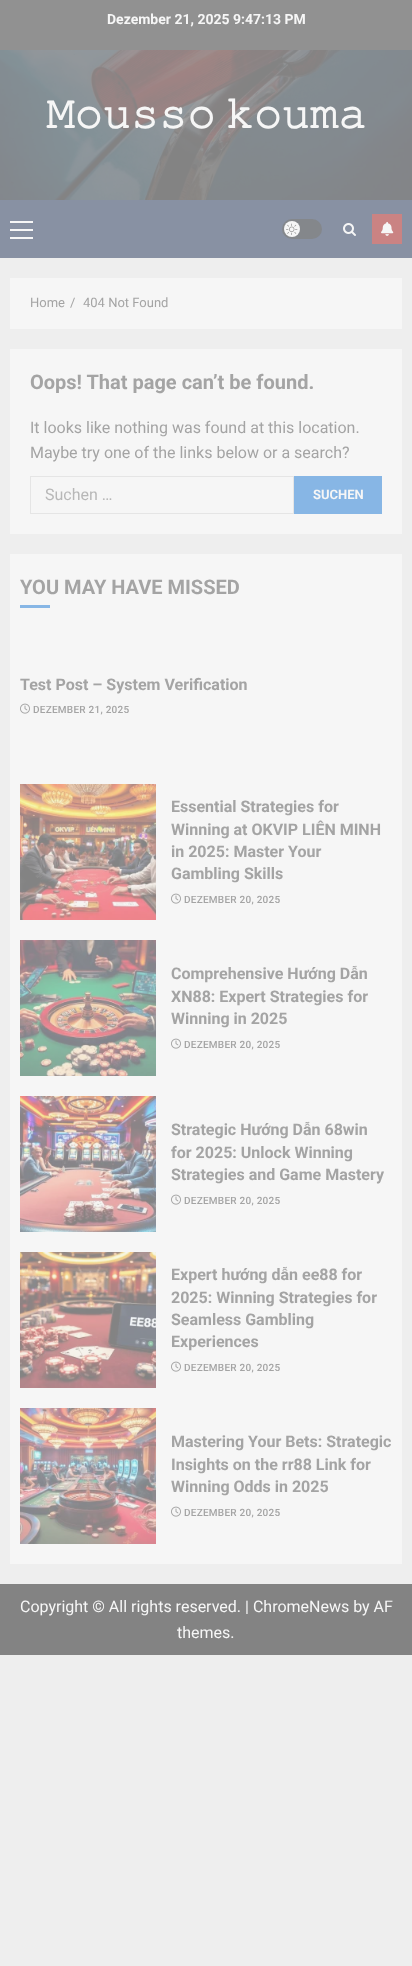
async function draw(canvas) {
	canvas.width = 412;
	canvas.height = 1966;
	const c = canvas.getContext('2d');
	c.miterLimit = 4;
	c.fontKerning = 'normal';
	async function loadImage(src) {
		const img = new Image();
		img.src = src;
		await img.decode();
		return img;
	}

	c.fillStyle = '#eee';
	c.fillRect(0, 0, 412, 1966);
	c.fillStyle = '#919191';
	c.fillRect(0, 0, 412, 50);
	c.font = 'bold 14px Roboto';
	c.fillStyle = '#f6f6f6';
	c.fillText('Dezember 21, 2025 9:47:13 PM', 107, 24);
	c.drawImage(await loadImage('img1.png'), 0, 50, 412, 150);
	c.font = 'bold 40px FreeSerif';
	c.fillText('𝙼𝚘𝚞𝚜𝚜𝚘 𝚔𝚘𝚞𝚖𝚊', 46, 128);
	for (const [x, y, w, h, color] of [
		[0, 200, 412, 58, '#8891a3'],
		[10, 229, 23, 2, '#f6f6f6'],
		[10, 221, 23, 2, '#f6f6f6'],
		[10, 237, 23, 2, '#f6f6f6'],
	]) {
		c.fillStyle = color;
		c.fillRect(x, y, w, h);
	}
	c.fillStyle = '#84878b';
	c.beginPath();
	c.roundRect(282, 219, 40, 20, 10);
	c.fill();
	c.fillStyle = '#f6f6f6';
	c.beginPath();
	c.arc(292, 229, 8, 0, 2 * Math.PI);
	c.fill();
	c.drawImage(await loadImage('img2.png'), 286, 223, 12, 12);
	c.drawImage(await loadImage('img3.png'), 343, 223, 13, 13);
	c.fillStyle = '#ca8383';
	c.fillRect(372, 214, 30, 30);
	c.drawImage(await loadImage('img4.png'), 381, 221, 13, 15);
	c.fillStyle = '#f6f6f6';
	c.fillRect(10, 278, 392, 51);
	c.font = '13px Roboto';
	c.fillStyle = '#a4a4a4';
	for (const [text, x, y] of [
		['Home', 30, 307],
		['/', 70, 307],
		['404 Not Found', 83, 307],
	]) {
		c.fillText(text, x, y);
	}
	c.fillStyle = '#f6f6f6';
	c.fillRect(10, 349, 392, 185);
	c.font = 'bold 20px Roboto';
	c.fillStyle = '#a4a4a4';
	c.fillText('Oops! That page can’t be found.', 30, 389);
	c.font = '16px Roboto';
	c.fillText('It looks like nothing was found at this location.', 30, 433);
	c.fillText('Maybe try one of the links below or a search?', 30, 458);
	c.strokeStyle = '#e5e5e5';
	c.strokeRect(30.5, 476.5, 263, 37);
	c.fillStyle = '#b8b8b8';
	c.fillText('Suchen …', 45, 500);
	c.fillStyle = '#87b6e5';
	c.fillRect(294, 476, 88, 38);
	c.font = 'bold 13px Roboto';
	c.fillStyle = '#f6f6f6';
	c.fillText('SUCHEN', 313, 499);
	c.fillRect(10, 554, 392, 1010);
	c.font = 'bold 20px Roboto';
	c.fillStyle = '#a4a4a4';
	c.fillText('YOU MAY HAVE MISSED', 20, 594);
	c.fillStyle = '#87b6e5';
	c.fillRect(20, 605, 30, 3);
	c.font = 'bold 16px Roboto';
	c.fillStyle = '#a4a4a4';
	c.fillText('Test Post – System Verification', 20, 690);
	c.drawImage(await loadImage('img5.png'), 20, 703, 10, 11);
	c.letterSpacing = '0.25px';
	c.font = '500 10px Roboto';
	c.fillText('DEZEMBER 21, 2025', 33, 713);
	c.drawImage(await loadImage('img6.png'), 20, 784, 136, 136);
	c.letterSpacing = '0px';
	c.font = 'bold 16px Roboto';
	for (const [text, x, y] of [
		['Essential Strategies for', 171, 812],
		['Winning at OKVIP LIÊN MINH', 171, 835],
		['in 2025: Master Your', 171, 857],
		['Gambling Skills', 171, 879],
	]) {
		c.fillText(text, x, y);
	}
	c.drawImage(await loadImage('img5.png'), 171, 893, 10, 11);
	c.letterSpacing = '0.25px';
	c.font = '500 10px Roboto';
	c.fillText('DEZEMBER 20, 2025', 184, 903);
	c.drawImage(await loadImage('img7.png'), 20, 940, 136, 136);
	c.letterSpacing = '0px';
	c.font = 'bold 16px Roboto';
	for (const [text, x, y] of [
		['Comprehensive Hướng Dẫn', 171, 979],
		['XN88: Expert Strategies for', 171, 1002],
		['Winning in 2025', 171, 1024],
	]) {
		c.fillText(text, x, y);
	}
	c.drawImage(await loadImage('img5.png'), 171, 1038, 10, 11);
	c.letterSpacing = '0.25px';
	c.font = '500 10px Roboto';
	c.fillText('DEZEMBER 20, 2025', 184, 1048);
	c.drawImage(await loadImage('img8.png'), 20, 1096, 136, 136);
	c.letterSpacing = '0px';
	c.font = 'bold 16px Roboto';
	for (const [text, x, y] of [
		['Strategic Hướng Dẫn 68win', 171, 1135],
		['for 2025: Unlock Winning', 171, 1158],
		['Strategies and Game Mastery', 171, 1180],
	]) {
		c.fillText(text, x, y);
	}
	c.drawImage(await loadImage('img5.png'), 171, 1194, 10, 11);
	c.letterSpacing = '0.25px';
	c.font = '500 10px Roboto';
	c.fillText('DEZEMBER 20, 2025', 184, 1204);
	c.drawImage(await loadImage('img9.png'), 20, 1252, 136, 136);
	c.letterSpacing = '0px';
	c.font = 'bold 16px Roboto';
	for (const [text, x, y] of [
		['Expert hướng dẫn ee88 for', 171, 1280],
		['2025: Winning Strategies for', 171, 1303],
		['Seamless Gambling', 171, 1325],
		['Experiences', 171, 1347],
	]) {
		c.fillText(text, x, y);
	}
	c.drawImage(await loadImage('img5.png'), 171, 1361, 10, 11);
	c.letterSpacing = '0.25px';
	c.font = '500 10px Roboto';
	c.fillText('DEZEMBER 20, 2025', 184, 1371);
	c.drawImage(await loadImage('img10.png'), 20, 1408, 136, 136);
	c.letterSpacing = '0px';
	c.font = 'bold 16px Roboto';
	for (const [text, x, y] of [
		['Mastering Your Bets: Strategic', 171, 1447],
		['Insights on the rr88 Link for', 171, 1470],
		['Winning Odds in 2025', 171, 1492],
	]) {
		c.fillText(text, x, y);
	}
	c.drawImage(await loadImage('img5.png'), 171, 1506, 10, 11);
	c.letterSpacing = '0.25px';
	c.font = '500 10px Roboto';
	c.fillText('DEZEMBER 20, 2025', 184, 1516);
	c.fillStyle = '#838383';
	c.fillRect(0, 1584, 412, 71);
	c.letterSpacing = '0px';
	c.font = '16px Roboto';
	c.fillStyle = '#f6f6f6';
	c.fillText('Copyright © All rights reserved. | ChromeNews by AF', 20, 1612);
	c.fillText('themes.', 177, 1638);
}

draw(document.querySelector('canvas'));
